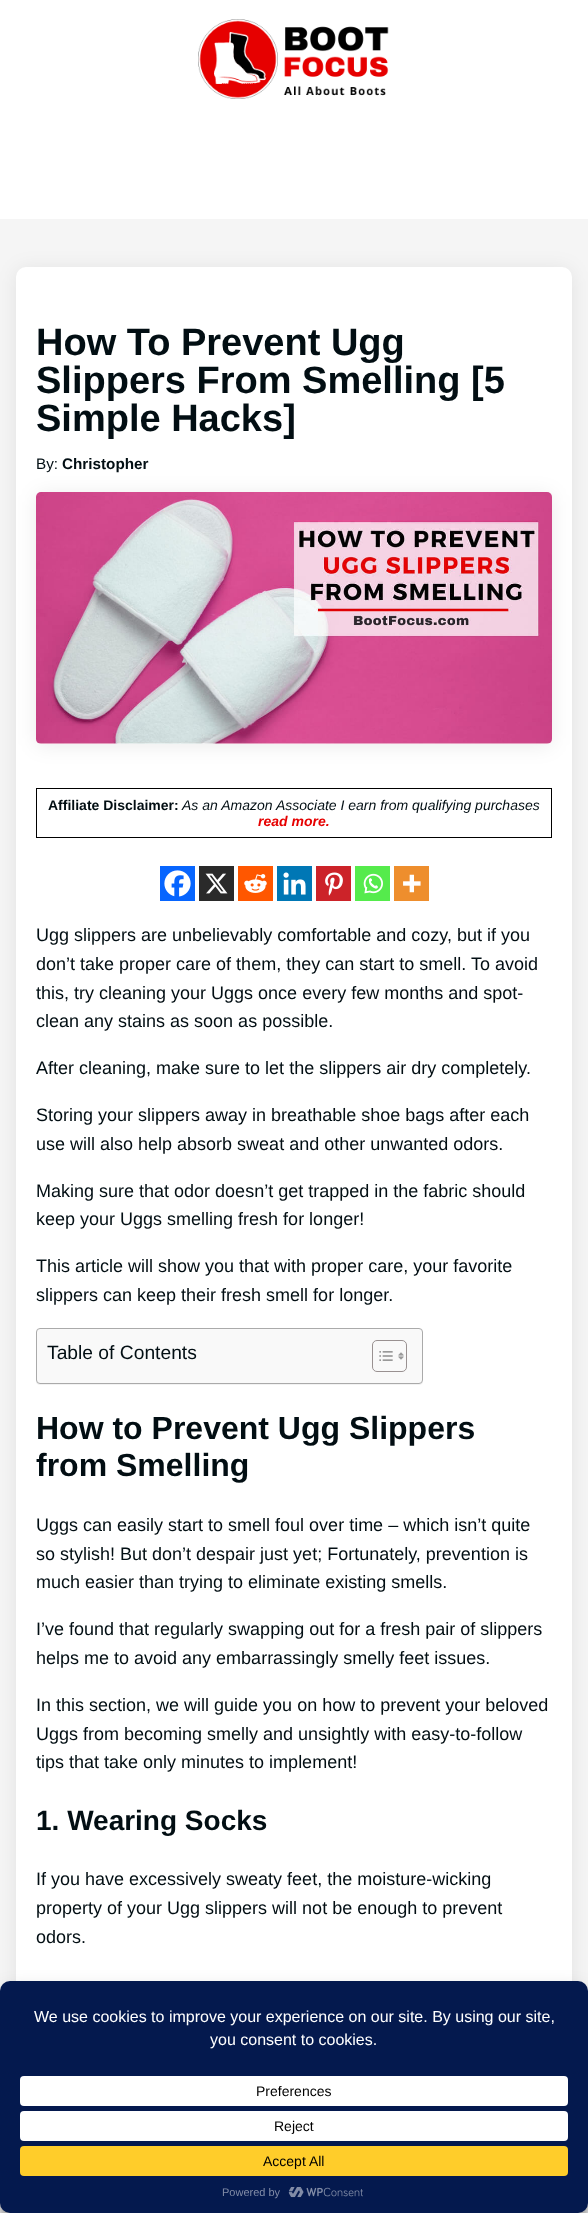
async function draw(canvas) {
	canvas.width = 588;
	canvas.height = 2213;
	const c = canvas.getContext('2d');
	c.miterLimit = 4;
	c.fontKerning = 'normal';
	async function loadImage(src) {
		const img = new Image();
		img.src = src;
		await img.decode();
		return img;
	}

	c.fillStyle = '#f5f5f5';
	c.fillRect(0, 0, 588, 2213);
	c.fillStyle = '#fff';
	c.fillRect(0, 0, 588, 219);
	c.drawImage(await loadImage('img1.png'), 198, 19, 191, 80);
	c.fillStyle = '#00000014';
	c.filter = 'blur(10px)';
	c.beginPath();
	c.roundRect(16, 269, 556, 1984, 10);
	c.fill();
	c.filter = 'none';
	c.fillStyle = '#fff';
	c.beginPath();
	c.roundRect(16, 267, 556, 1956, 10);
	c.fill();
	c.font = 'bold 38px Liberation Sans';
	c.fillStyle = '#020e13';
	for (const [text, x, y] of [
		['How To Prevent Ugg', 36, 355],
		['Slippers From Smelling [5', 36, 393],
		['Simple Hacks]', 36, 431],
	]) {
		c.fillText(text, x, y);
	}
	c.font = '15.25px Liberation Sans';
	c.fillText('By:', 36, 469);
	c.font = 'bold 15.25px Liberation Sans';
	c.fillText('Christopher', 62, 469);
	c.fillStyle = '#00000014';
	c.filter = 'blur(10px)';
	c.beginPath();
	c.roundRect(36, 494, 516, 252, 5);
	c.fill();
	c.filter = 'none';
	c.drawImage(await loadImage('img2.png'), 36, 492, 516, 252);
	c.strokeStyle = '#000';
	c.strokeRect(36.5, 788.5, 515, 49);
	c.font = 'bold 14px Liberation Sans';
	c.fillStyle = '#020e13';
	c.fillText('Affiliate Disclaimer:', 48, 810);
	c.font = 'italic 14px Liberation Sans';
	c.fillText('As an Amazon Associate I earn from qualifying purchases', 182, 810);
	c.font = 'italic bold 14px Liberation Sans';
	c.fillStyle = '#e60000';
	c.fillText('read more.', 258, 826);
	c.fillStyle = '#0765fe';
	c.fillRect(160, 866, 35, 35);
	c.drawImage(await loadImage('img3.png'), 164, 870, 27, 27);
	c.fillStyle = '#2a2a2a';
	c.fillRect(199, 866, 35, 35);
	c.drawImage(await loadImage('img4.png'), 205, 873, 23, 21);
	c.fillStyle = '#ff5700';
	c.fillRect(238, 866, 35, 35);
	c.drawImage(await loadImage('img5.png'), 244, 874, 23, 19);
	c.fillStyle = '#0077b5';
	c.fillRect(277, 866, 35, 35);
	c.drawImage(await loadImage('img6.png'), 283, 872, 23, 23);
	c.fillStyle = '#cc2329';
	c.fillRect(316, 866, 35, 35);
	c.drawImage(await loadImage('img7.png'), 325, 872, 18, 24);
	c.fillStyle = '#55eb4c';
	c.fillRect(355, 866, 35, 35);
	c.drawImage(await loadImage('img8.png'), 363, 873, 20, 21);
	c.fillStyle = '#ee8e2d';
	c.fillRect(394, 866, 35, 35);
	c.drawImage(await loadImage('img9.png'), 403, 874, 18, 19);
	c.font = '18px Liberation Sans';
	c.fillStyle = '#020e13';
	for (const [text, x, y] of [
		['Ugg slippers are unbelievably comfortable and cozy, but if you', 36, 941],
		['don’t take proper care of them, they can start to smell. To avoid', 36, 970],
		['this, try cleaning your Uggs once every few months and spot-', 36, 999],
		['clean any stains as soon as possible.', 36, 1027],
		['After cleaning, make sure to let the slippers air dry completely.', 36, 1074],
		['Storing your slippers away in breathable shoe bags after each', 36, 1121],
		['use will also help absorb sweat and other unwanted odors.', 36, 1150],
		['Making sure that odor doesn’t get trapped in the fabric should', 36, 1197],
		['keep your Uggs smelling fresh for longer!', 36, 1225],
		['This article will show you that with proper care, your favorite', 36, 1272],
		['slippers can keep their fresh smell for longer.', 36, 1301],
	]) {
		c.fillText(text, x, y);
	}
	c.fillStyle = '#0000000d';
	c.filter = 'blur(0.5px)';
	c.beginPath();
	c.roundRect(36, 1329, 387, 56, 4);
	c.fill();
	c.filter = 'none';
	c.fillStyle = '#f9f9f9';
	c.beginPath();
	c.roundRect(36.5, 1328.5, 386, 55, 3.5);
	c.fill();
	c.strokeStyle = '#aaa';
	c.stroke();
	c.font = '19.25px Liberation Sans';
	c.fillStyle = '#020e13';
	c.fillText('Table of Contents', 47, 1359);
	c.beginPath();
	c.roundRect(372.5, 1340.5, 34, 31, 4.5);
	c.strokeStyle = '#999191';
	c.stroke();
	c.drawImage(await loadImage('img10.png'), 379, 1351, 14, 10);
	c.drawImage(await loadImage('img11.png'), 398, 1352, 6, 8);
	c.font = 'bold 32px Liberation Sans';
	c.fillText('How to Prevent Ugg Slippers', 36, 1439);
	c.fillText('from Smelling', 36, 1476);
	c.font = '18px Liberation Sans';
	for (const [text, x, y] of [
		['Uggs can easily start to smell foul over time – which isn’t quite', 36, 1531],
		['so stylish! But don’t despair just yet; Fortunately, prevention is', 36, 1560],
		['much easier than trying to eliminate existing smells.', 36, 1588],
		['I’ve found that regularly swapping out for a fresh pair of slippers', 36, 1635],
		['helps me to avoid any embarrassingly smelly feet issues.', 36, 1664],
		['In this section, we will guide you on how to prevent your beloved', 36, 1711],
		['Uggs from becoming smelly and unsightly with easy-to-follow', 36, 1740],
		['tips that take only minutes to implement!', 36, 1768],
	]) {
		c.fillText(text, x, y);
	}
	c.font = 'bold 28px Liberation Sans';
	c.fillText('1. Wearing Socks', 36, 1830);
	c.font = '18px Liberation Sans';
	for (const [text, x, y] of [
		['If you have excessively sweaty feet, the moisture-wicking', 36, 1885],
		['property of your Ugg slippers will not be enough to prevent', 36, 1914],
		['odors.', 36, 1943],
	]) {
		c.fillText(text, x, y);
	}
	c.fillStyle = '#0000003b';
	c.filter = 'blur(3px)';
	c.beginPath();
	c.roundRect(0, 1987, 588, 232, 10);
	c.fill();
	c.filter = 'none';
	c.fillStyle = '#00000030';
	c.filter = 'blur(10px)';
	c.beginPath();
	c.roundRect(0, 1991, 588, 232, 10);
	c.fill();
	c.filter = 'none';
	c.fillStyle = '#04194e';
	c.beginPath();
	c.roundRect(0, 1981, 588, 232, 10);
	c.fill();
	c.font = '16px Liberation Sans';
	c.fillStyle = '#fff';
	c.fillText('We use cookies to improve your experience on our site. By using our site,', 34, 2022);
	c.fillText('you consent to cookies.', 210, 2045);
	c.beginPath();
	c.roundRect(20, 2076, 548, 30, 4);
	c.fill();
	c.font = '14px Liberation Sans';
	c.fillStyle = '#000';
	c.fillText('Preferences', 256, 2096);
	c.fillStyle = '#fff';
	c.beginPath();
	c.roundRect(20, 2111, 548, 30, 4);
	c.fill();
	c.fillStyle = '#000';
	c.fillText('Reject', 274, 2131);
	c.fillStyle = '#ffcd2a';
	c.beginPath();
	c.roundRect(20, 2146, 548, 30, 4);
	c.fill();
	c.fillStyle = '#000';
	c.fillText('Accept All', 263, 2166);
	c.font = '11px Liberation Sans';
	c.fillStyle = '#828ca7';
	c.fillText('Powered by', 222, 2196);
	c.drawImage(await loadImage('img12.png'), 288, 2187, 75, 11);
}

draw(document.querySelector('canvas'));
